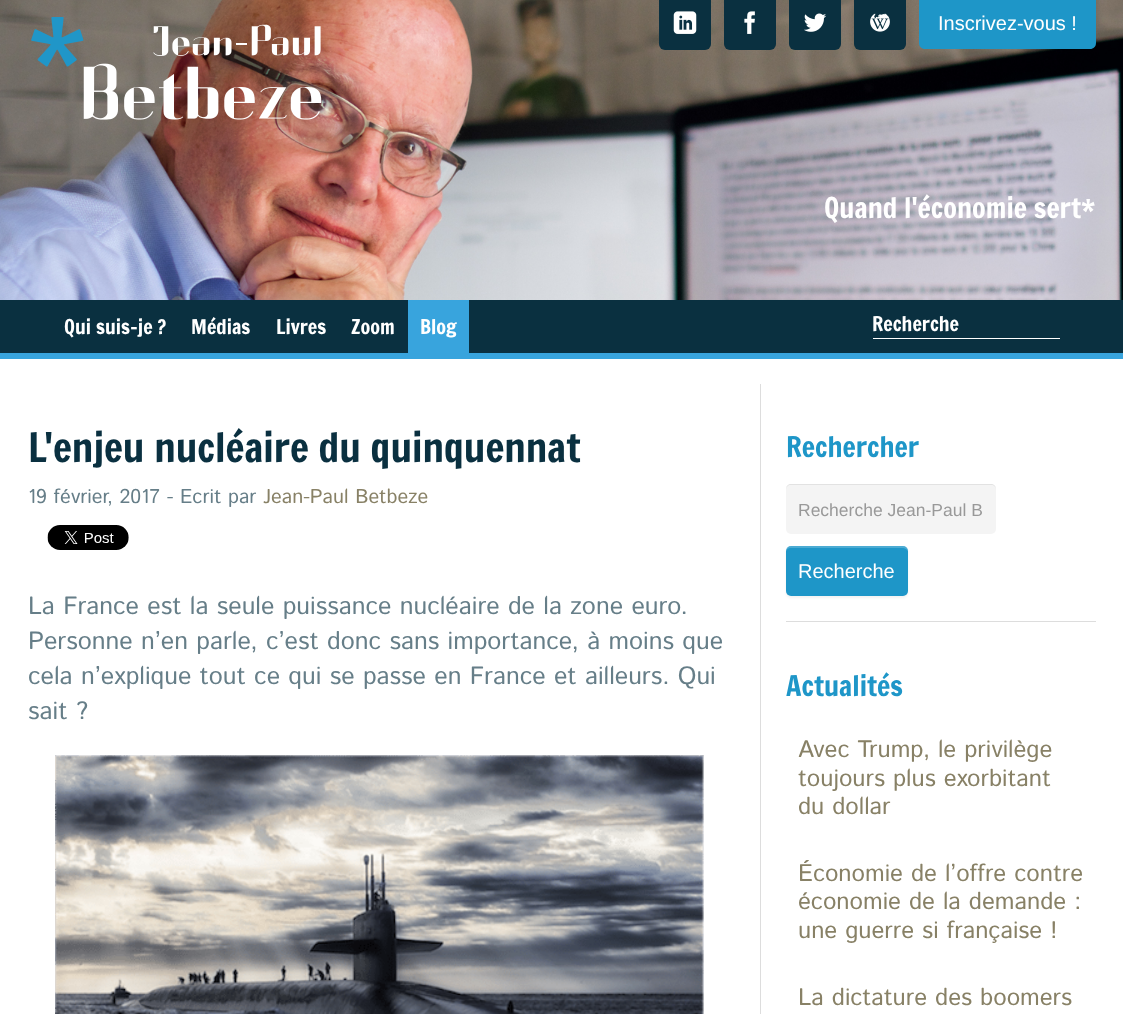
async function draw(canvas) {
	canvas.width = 1123;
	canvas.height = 1014;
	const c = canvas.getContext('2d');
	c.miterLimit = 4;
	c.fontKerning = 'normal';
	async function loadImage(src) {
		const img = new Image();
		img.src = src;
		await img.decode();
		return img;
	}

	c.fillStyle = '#fff';
	c.fillRect(0, 0, 1123, 1014);
	c.drawImage(await loadImage('img1.png'), 0, 0, 1123, 300);
	c.drawImage(await loadImage('img2.png'), 31, 17, 291, 103);
	c.fillStyle = '#0a3040';
	c.beginPath();
	c.roundRect(659, 0, 52, 50, [0, 0, 6, 6]);
	c.fill();
	c.drawImage(await loadImage('img3.png'), 673, 11, 24, 23);
	c.beginPath();
	c.roundRect(724, 0, 52, 50, [0, 0, 6, 6]);
	c.fill();
	c.drawImage(await loadImage('img4.png'), 744, 11, 11, 23);
	c.beginPath();
	c.roundRect(789, 0, 52, 50, [0, 0, 6, 6]);
	c.fill();
	c.drawImage(await loadImage('img5.png'), 804, 13, 23, 19);
	c.beginPath();
	c.roundRect(854, 0, 52, 50, [0, 0, 6, 6]);
	c.fill();
	c.drawImage(await loadImage('img6.png'), 870, 13, 20, 19);
	c.fillStyle = '#1e96c8';
	c.beginPath();
	c.moveTo(919, -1);
	c.lineTo(1096, -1);
	c.lineTo(1096, 43);
	c.bezierCurveTo(1096, 46.5, 1093.5, 49, 1090, 49);
	c.lineTo(925, 49);
	c.bezierCurveTo(921.5, 49, 919, 46.5, 919, 43);
	c.closePath();
	c.fill();
	c.font = '20px Liberation Sans';
	c.fillStyle = '#fff';
	c.fillText('Inscrivez-vous !', 938, 30);
	c.font = '28px Francois One';
	c.fillText('Quand l\'économie sert*', 824, 218);
	c.fillStyle = '#0a3040';
	c.fillRect(0, 300, 1123, 53);
	c.fillStyle = '#38a4dd';
	c.fillRect(0, 353, 1123, 6);
	c.font = '20px Francois One';
	c.fillStyle = '#fff';
	for (const [text, x, y] of [
		['Qui suis-je ?', 64, 334],
		['Médias', 191, 334],
		['Livres', 276, 334],
		['Zoom', 351, 334],
	]) {
		c.fillText(text, x, y);
	}
	c.fillStyle = '#38a4dd';
	c.fillRect(408, 300, 61, 53);
	c.fillStyle = '#fff';
	c.fillText('Blog', 420, 334);
	c.fillRect(873, 338, 187, 1);
	c.fillText('Recherche', 872, 331);
	c.font = '40px Francois One';
	c.fillStyle = '#0a3040';
	c.fillText('L\'enjeu nucléaire du quinquennat', 28, 462);
	c.font = '20px Istok Web';
	c.fillStyle = '#667e88';
	c.fillText('19 février, 2017 - Ecrit par', 28, 503);
	c.fillStyle = '#888166';
	c.fillText('Jean-Paul Betbeze', 263, 503);
	c.drawImage(await loadImage('img7.png'), 47, 525, 82, 25);
	c.font = '25px Istok Web';
	c.fillStyle = '#667e88';
	for (const [text, x, y] of [
		['La France est la seule puissance nucléaire de la zone euro.', 28, 614],
		['Personne n’en parle, c’est donc sans importance, à moins que', 28, 649],
		['cela n’explique tout ce qui se passe en France et ailleurs. Qui', 28, 684],
		['sait ?', 28, 719],
	]) {
		c.fillText(text, x, y);
	}
	c.drawImage(await loadImage('img8.png'), 55, 755, 649, 259);
	c.fillStyle = '#ddd';
	c.fillRect(760, 384, 1, 630);
	c.font = '28px Francois One';
	c.fillStyle = '#1e96c8';
	c.fillText('Rechercher', 786, 457);
	c.fillStyle = '#f4f4f4';
	c.beginPath();
	c.roundRect(786, 484, 210, 50, 5);
	c.fill();
	c.fillStyle = '#00000012';
	c.beginPath();
	c.moveTo(791, 485);
	c.lineTo(991, 485);
	c.bezierCurveTo(994, 485, 996, 487, 996, 490);
	c.lineTo(996, 489);
	c.bezierCurveTo(996, 486, 994, 484, 991, 484);
	c.lineTo(791, 484);
	c.bezierCurveTo(788, 484, 786, 486, 786, 489);
	c.lineTo(786, 490);
	c.bezierCurveTo(786, 487, 788, 485, 791, 485);
	c.closePath();
	c.fill();
	c.font = '17.5px Liberation Sans';
	c.fillStyle = '#999';
	c.fillText('Recherche Jean-Paul B', 798, 516);
	c.fillStyle = '#0000000d';
	c.filter = 'blur(1px)';
	c.beginPath();
	c.roundRect(786, 548, 122, 50, 5);
	c.fill();
	c.filter = 'none';
	c.fillStyle = '#1e96c8';
	c.beginPath();
	c.roundRect(786, 546, 122, 50, 5);
	c.fill();
	c.fillStyle = '#ffffff33';
	c.beginPath();
	c.moveTo(791, 548);
	c.lineTo(902, 548);
	c.bezierCurveTo(905, 548, 908, 550, 908, 552);
	c.bezierCurveTo(908, 541, 889, 546, 884, 546);
	c.lineTo(810, 546);
	c.bezierCurveTo(805, 546, 786, 541, 786, 552);
	c.bezierCurveTo(786, 550, 788, 548, 791, 548);
	c.closePath();
	c.fill();
	c.font = '20px Liberation Sans';
	c.fillStyle = '#fff';
	c.fillText('Recherche', 798, 578);
	c.fillStyle = '#ddd';
	c.fillRect(786, 621, 310, 1);
	c.font = '28px Francois One';
	c.fillStyle = '#1e96c8';
	c.fillText('Actualités', 786, 696);
	c.font = '24px Istok Web';
	c.fillStyle = '#888166';
	for (const [text, x, y] of [
		['Avec Trump, le privilège', 798, 757],
		['toujours plus exorbitant', 798, 786],
		['du dollar', 798, 814],
		['Économie de l’offre contre', 798, 881],
		['économie de la demande :', 798, 909],
		['une guerre si française !', 798, 938],
		['La dictature des boomers', 798, 1005],
	]) {
		c.fillText(text, x, y);
	}
}

draw(document.querySelector('canvas'));
